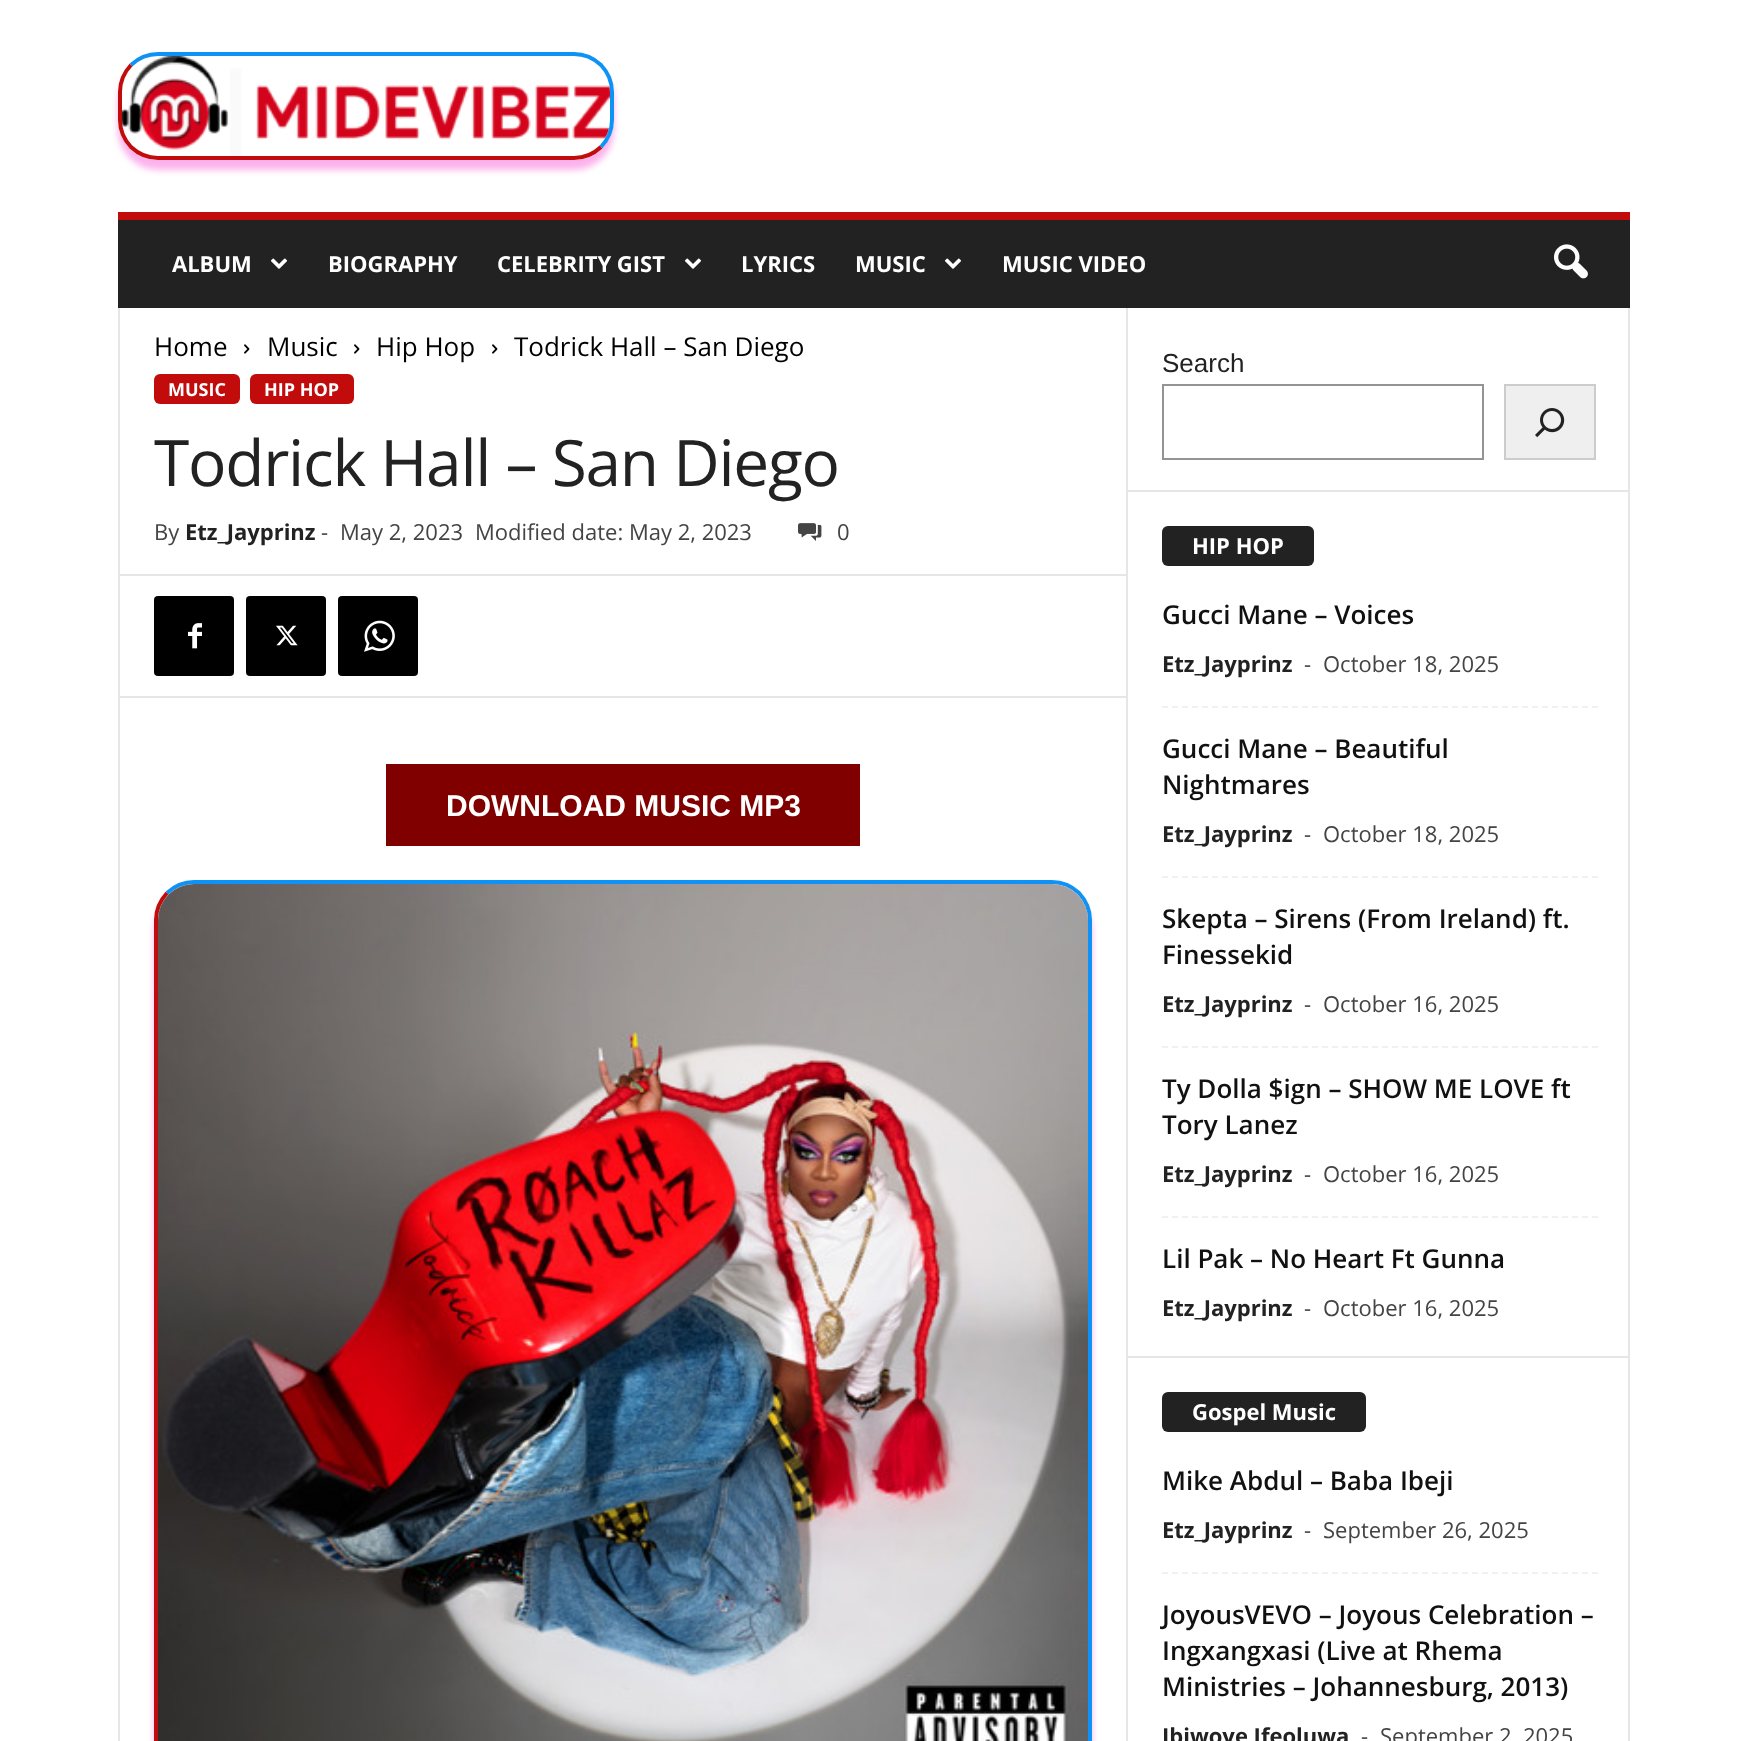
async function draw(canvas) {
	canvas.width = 1748;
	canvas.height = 1741;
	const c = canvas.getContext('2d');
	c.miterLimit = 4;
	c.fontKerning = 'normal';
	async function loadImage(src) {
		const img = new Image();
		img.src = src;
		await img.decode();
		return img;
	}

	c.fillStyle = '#fff';
	c.fillRect(0, 0, 1748, 1741);
	c.save();
	c.beginPath();
	c.moveTo(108, 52);
	c.lineTo(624, 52);
	c.lineTo(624, 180);
	c.lineTo(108, 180);
	c.closePath();
	c.moveTo(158, 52);
	c.lineTo(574, 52);
	c.bezierCurveTo(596, 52, 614, 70, 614, 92);
	c.lineTo(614, 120);
	c.bezierCurveTo(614, 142, 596, 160, 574, 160);
	c.lineTo(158, 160);
	c.bezierCurveTo(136, 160, 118, 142, 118, 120);
	c.lineTo(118, 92);
	c.bezierCurveTo(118, 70, 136, 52, 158, 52);
	c.closePath();
	c.clip('evenodd');
	c.fillStyle = '#f404c04d';
	c.filter = 'blur(3px)';
	c.beginPath();
	c.roundRect(118, 62, 496, 108, 40);
	c.fill();
	c.filter = 'none';
	c.restore();
	c.beginPath();
	c.moveTo(131, 65);
	c.bezierCurveTo(138.5, 58, 148, 54, 158, 54);
	c.lineTo(574, 54);
	c.bezierCurveTo(584, 54, 593.5, 58, 601, 65);
	c.bezierCurveTo(608, 72.5, 612, 82, 612, 92);
	c.lineTo(612, 120);
	c.bezierCurveTo(612, 130, 608, 139.5, 601, 147);
	c.strokeStyle = '#0e92f5';
	c.lineWidth = 4;
	c.stroke();
	c.beginPath();
	c.moveTo(601, 147);
	c.bezierCurveTo(593.5, 154, 584, 158, 574, 158);
	c.lineTo(158, 158);
	c.bezierCurveTo(148, 158, 138.5, 154, 131, 147);
	c.bezierCurveTo(124, 139.5, 120, 130, 120, 120);
	c.lineTo(120, 92);
	c.bezierCurveTo(120, 82, 124, 72.5, 131, 65);
	c.strokeStyle = '#c20c0c';
	c.stroke();
	c.drawImage(await loadImage('img1.png'), 122, 56, 488, 100);
	c.fillStyle = '#222';
	c.fillRect(118, 220, 1512, 88);
	c.fillStyle = '#c20c0c';
	c.fillRect(118, 212, 1512, 8);
	c.font = 'bold 22px Open Sans';
	c.fillStyle = '#fff';
	c.fillText('ALBUM', 172, 272);
	c.drawImage(await loadImage('img2.png'), 270, 258, 18, 11);
	c.fillText('BIOGRAPHY', 328, 272);
	c.fillText('CELEBRITY GIST', 497, 272);
	c.drawImage(await loadImage('img2.png'), 684, 258, 18, 11);
	c.fillText('LYRICS', 741, 272);
	c.fillText('MUSIC', 855, 272);
	c.drawImage(await loadImage('img2.png'), 944, 258, 18, 11);
	c.fillText('MUSIC VIDEO', 1002, 272);
	c.drawImage(await loadImage('img3.png'), 1554, 244, 34, 35);
	c.fillStyle = '#e6e6e6';
	c.fillRect(118, 308, 2, 1433);
	c.font = '26px Open Sans';
	c.fillStyle = '#000';
	c.fillText('Home', 154, 356);
	c.drawImage(await loadImage('img4.png'), 244, 344, 6, 10);
	c.fillText('Music', 267, 356);
	c.drawImage(await loadImage('img4.png'), 354, 344, 6, 10);
	c.fillText('Hip Hop', 376, 356);
	c.drawImage(await loadImage('img4.png'), 492, 344, 6, 10);
	c.fillText('Todrick Hall – San Diego', 514, 356);
	c.fillStyle = '#c20c0c';
	c.beginPath();
	c.roundRect(154, 374, 86, 30, 6);
	c.fill();
	c.font = 'bold 18px Open Sans';
	c.fillStyle = '#fff';
	c.fillText('MUSIC', 168, 396);
	c.fillStyle = '#c20c0c';
	c.beginPath();
	c.roundRect(250, 374, 104, 30, 6);
	c.fill();
	c.fillStyle = '#fff';
	c.fillText('HIP HOP', 264, 396);
	c.letterSpacing = '-1.25px';
	c.font = '64px Open Sans';
	c.fillStyle = '#222';
	c.fillText('Todrick Hall – San Diego', 154, 486);
	c.letterSpacing = '0px';
	c.font = '22px Open Sans';
	c.fillStyle = '#444';
	c.fillText('By', 154, 540);
	c.font = 'bold 22px Open Sans';
	c.fillStyle = '#222';
	c.fillText('Etz_Jayprinz', 185, 540);
	c.font = '22px Open Sans';
	c.fillStyle = '#444';
	for (const [text, x, y] of [
		['-', 321, 540],
		['May 2, 2023', 340, 540],
		['Modified date: May 2, 2023', 475, 540],
	]) {
		c.fillText(text, x, y);
	}
	c.drawImage(await loadImage('img5.png'), 798, 523, 24, 18);
	c.fillText('0', 837, 540);
	c.fillStyle = '#e6e6e6';
	c.fillRect(120, 574, 1006, 2);
	c.fillStyle = '#000';
	c.beginPath();
	c.roundRect(154, 596, 80, 80, 4);
	c.fill();
	c.drawImage(await loadImage('img6.png'), 188, 623, 14, 26);
	c.beginPath();
	c.roundRect(246, 596, 80, 80, 4);
	c.fill();
	c.drawImage(await loadImage('img7.png'), 276, 625, 22, 21);
	c.beginPath();
	c.roundRect(338, 596, 80, 80, 4);
	c.fill();
	c.drawImage(await loadImage('img8.png'), 364, 620, 31, 32);
	c.fillStyle = '#e6e6e6';
	c.fillRect(120, 696, 1006, 2);
	c.fillStyle = '#800000';
	c.fillRect(386, 764, 474, 82);
	c.font = 'bold 30px Liberation Sans';
	c.fillStyle = '#fff';
	c.fillText('DOWNLOAD MUSIC MP3', 446, 816);
	c.fillStyle = '#f404c04d';
	c.filter = 'blur(3px)';
	c.beginPath();
	c.roundRect(154, 890, 938, 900, 40);
	c.fill();
	c.filter = 'none';
	c.beginPath();
	c.moveTo(167, 893);
	c.bezierCurveTo(174.5, 886, 184, 882, 194, 882);
	c.lineTo(1052, 882);
	c.bezierCurveTo(1062, 882, 1071.5, 886, 1079, 893);
	c.bezierCurveTo(1086, 900.5, 1090, 910, 1090, 920);
	c.lineTo(1090, 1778);
	c.bezierCurveTo(1090, 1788, 1086, 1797.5, 1079, 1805);
	c.strokeStyle = '#0e92f5';
	c.stroke();
	c.beginPath();
	c.moveTo(1079, 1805);
	c.bezierCurveTo(1071.5, 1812, 1062, 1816, 1052, 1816);
	c.lineTo(194, 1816);
	c.bezierCurveTo(184, 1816, 174.5, 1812, 167, 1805);
	c.bezierCurveTo(160, 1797.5, 156, 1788, 156, 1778);
	c.lineTo(156, 920);
	c.bezierCurveTo(156, 910, 160, 900.5, 167, 893);
	c.strokeStyle = '#c20c0c';
	c.stroke();
	c.drawImage(await loadImage('img9.png'), 158, 884, 930, 857);
	c.fillStyle = '#e6e6e6';
	c.fillRect(1126, 308, 2, 1433);
	c.font = '26px Liberation Sans';
	c.fillStyle = '#222';
	c.fillText('Search', 1162, 372);
	c.strokeStyle = '#949494';
	c.lineWidth = 2;
	c.strokeRect(1163, 385, 320, 74);
	c.fillStyle = '#efefef';
	c.beginPath();
	c.rect(1505, 385, 90, 74);
	c.fill();
	c.strokeStyle = '#ccc';
	c.stroke();
	c.drawImage(await loadImage('img10.png'), 1535, 408, 30, 30);
	c.fillStyle = '#e6e6e6';
	c.fillRect(1628, 308, 2, 1433);
	c.fillRect(1128, 490, 502, 2);
	c.fillStyle = '#222';
	c.beginPath();
	c.roundRect(1162, 526, 152, 40, 6);
	c.fill();
	c.font = 'bold 22px Open Sans';
	c.fillStyle = '#fff';
	c.fillText('HIP HOP', 1192, 554);
	c.beginPath();
	c.moveTo(1162, 707);
	c.lineTo(1598, 707);
	c.strokeStyle = '#f1f1f1';
	c.setLineDash([6, 4]);
	c.stroke();
	c.font = '600 26px Open Sans';
	c.fillStyle = '#111';
	c.fillText('Gucci Mane – Voices', 1162, 624);
	c.font = 'bold 22px Open Sans';
	c.fillStyle = '#222';
	c.fillText('Etz_Jayprinz', 1162, 672);
	c.font = '22px Open Sans';
	c.fillStyle = '#444';
	c.fillText('-', 1304, 672);
	c.fillText('October 18, 2025', 1323, 672);
	c.beginPath();
	c.moveTo(1162, 877);
	c.lineTo(1598, 877);
	c.stroke();
	c.font = '600 26px Open Sans';
	c.fillStyle = '#111';
	c.fillText('Gucci Mane – Beautiful', 1162, 758);
	c.fillText('Nightmares', 1162, 794);
	c.font = 'bold 22px Open Sans';
	c.fillStyle = '#222';
	c.fillText('Etz_Jayprinz', 1162, 842);
	c.font = '22px Open Sans';
	c.fillStyle = '#444';
	c.fillText('-', 1304, 842);
	c.fillText('October 18, 2025', 1323, 842);
	c.beginPath();
	c.moveTo(1162, 1047);
	c.lineTo(1598, 1047);
	c.stroke();
	c.font = '600 26px Open Sans';
	c.fillStyle = '#111';
	c.fillText('Skepta – Sirens (From Ireland) ft.', 1162, 928);
	c.fillText('Finessekid', 1162, 964);
	c.font = 'bold 22px Open Sans';
	c.fillStyle = '#222';
	c.fillText('Etz_Jayprinz', 1162, 1012);
	c.font = '22px Open Sans';
	c.fillStyle = '#444';
	c.fillText('-', 1304, 1012);
	c.fillText('October 16, 2025', 1323, 1012);
	c.beginPath();
	c.moveTo(1162, 1217);
	c.lineTo(1598, 1217);
	c.stroke();
	c.font = '600 26px Open Sans';
	c.fillStyle = '#111';
	c.fillText('Ty Dolla $ign – SHOW ME LOVE ft', 1162, 1098);
	c.fillText('Tory Lanez', 1162, 1134);
	c.font = 'bold 22px Open Sans';
	c.fillStyle = '#222';
	c.fillText('Etz_Jayprinz', 1162, 1182);
	c.font = '22px Open Sans';
	c.fillStyle = '#444';
	c.fillText('-', 1304, 1182);
	c.fillText('October 16, 2025', 1323, 1182);
	c.font = '600 26px Open Sans';
	c.fillStyle = '#111';
	c.fillText('Lil Pak – No Heart Ft Gunna', 1162, 1268);
	c.font = 'bold 22px Open Sans';
	c.fillStyle = '#222';
	c.fillText('Etz_Jayprinz', 1162, 1316);
	c.font = '22px Open Sans';
	c.fillStyle = '#444';
	c.fillText('-', 1304, 1316);
	c.fillText('October 16, 2025', 1323, 1316);
	c.fillStyle = '#e6e6e6';
	c.fillRect(1128, 1356, 502, 2);
	c.fillStyle = '#222';
	c.beginPath();
	c.roundRect(1162, 1392, 204, 40, 6);
	c.fill();
	c.font = 'bold 22px Open Sans';
	c.fillStyle = '#fff';
	c.fillText('Gospel Music', 1192, 1420);
	c.beginPath();
	c.moveTo(1162, 1573);
	c.lineTo(1598, 1573);
	c.stroke();
	c.font = '600 26px Open Sans';
	c.fillStyle = '#111';
	c.fillText('Mike Abdul – Baba Ibeji', 1162, 1490);
	c.font = 'bold 22px Open Sans';
	c.fillStyle = '#222';
	c.fillText('Etz_Jayprinz', 1162, 1538);
	c.font = '22px Open Sans';
	c.fillStyle = '#444';
	c.fillText('-', 1304, 1538);
	c.fillText('September 26, 2025', 1323, 1538);
	c.font = '600 26px Open Sans';
	c.fillStyle = '#111';
	for (const [text, x, y] of [
		['JoyousVEVO – Joyous Celebration –', 1162, 1624],
		['Ingxangxasi (Live at Rhema', 1162, 1660],
		['Ministries – Johannesburg, 2013)', 1162, 1696],
	]) {
		c.fillText(text, x, y);
	}
	c.font = 'bold 22px Open Sans';
	c.fillStyle = '#222';
	c.fillText('Ibiwoye Ifeoluwa', 1162, 1744);
	c.font = '22px Open Sans';
	c.fillStyle = '#444';
	c.fillText('-', 1361, 1744);
	c.fillText('September 2, 2025', 1380, 1744);
}

draw(document.querySelector('canvas'));
